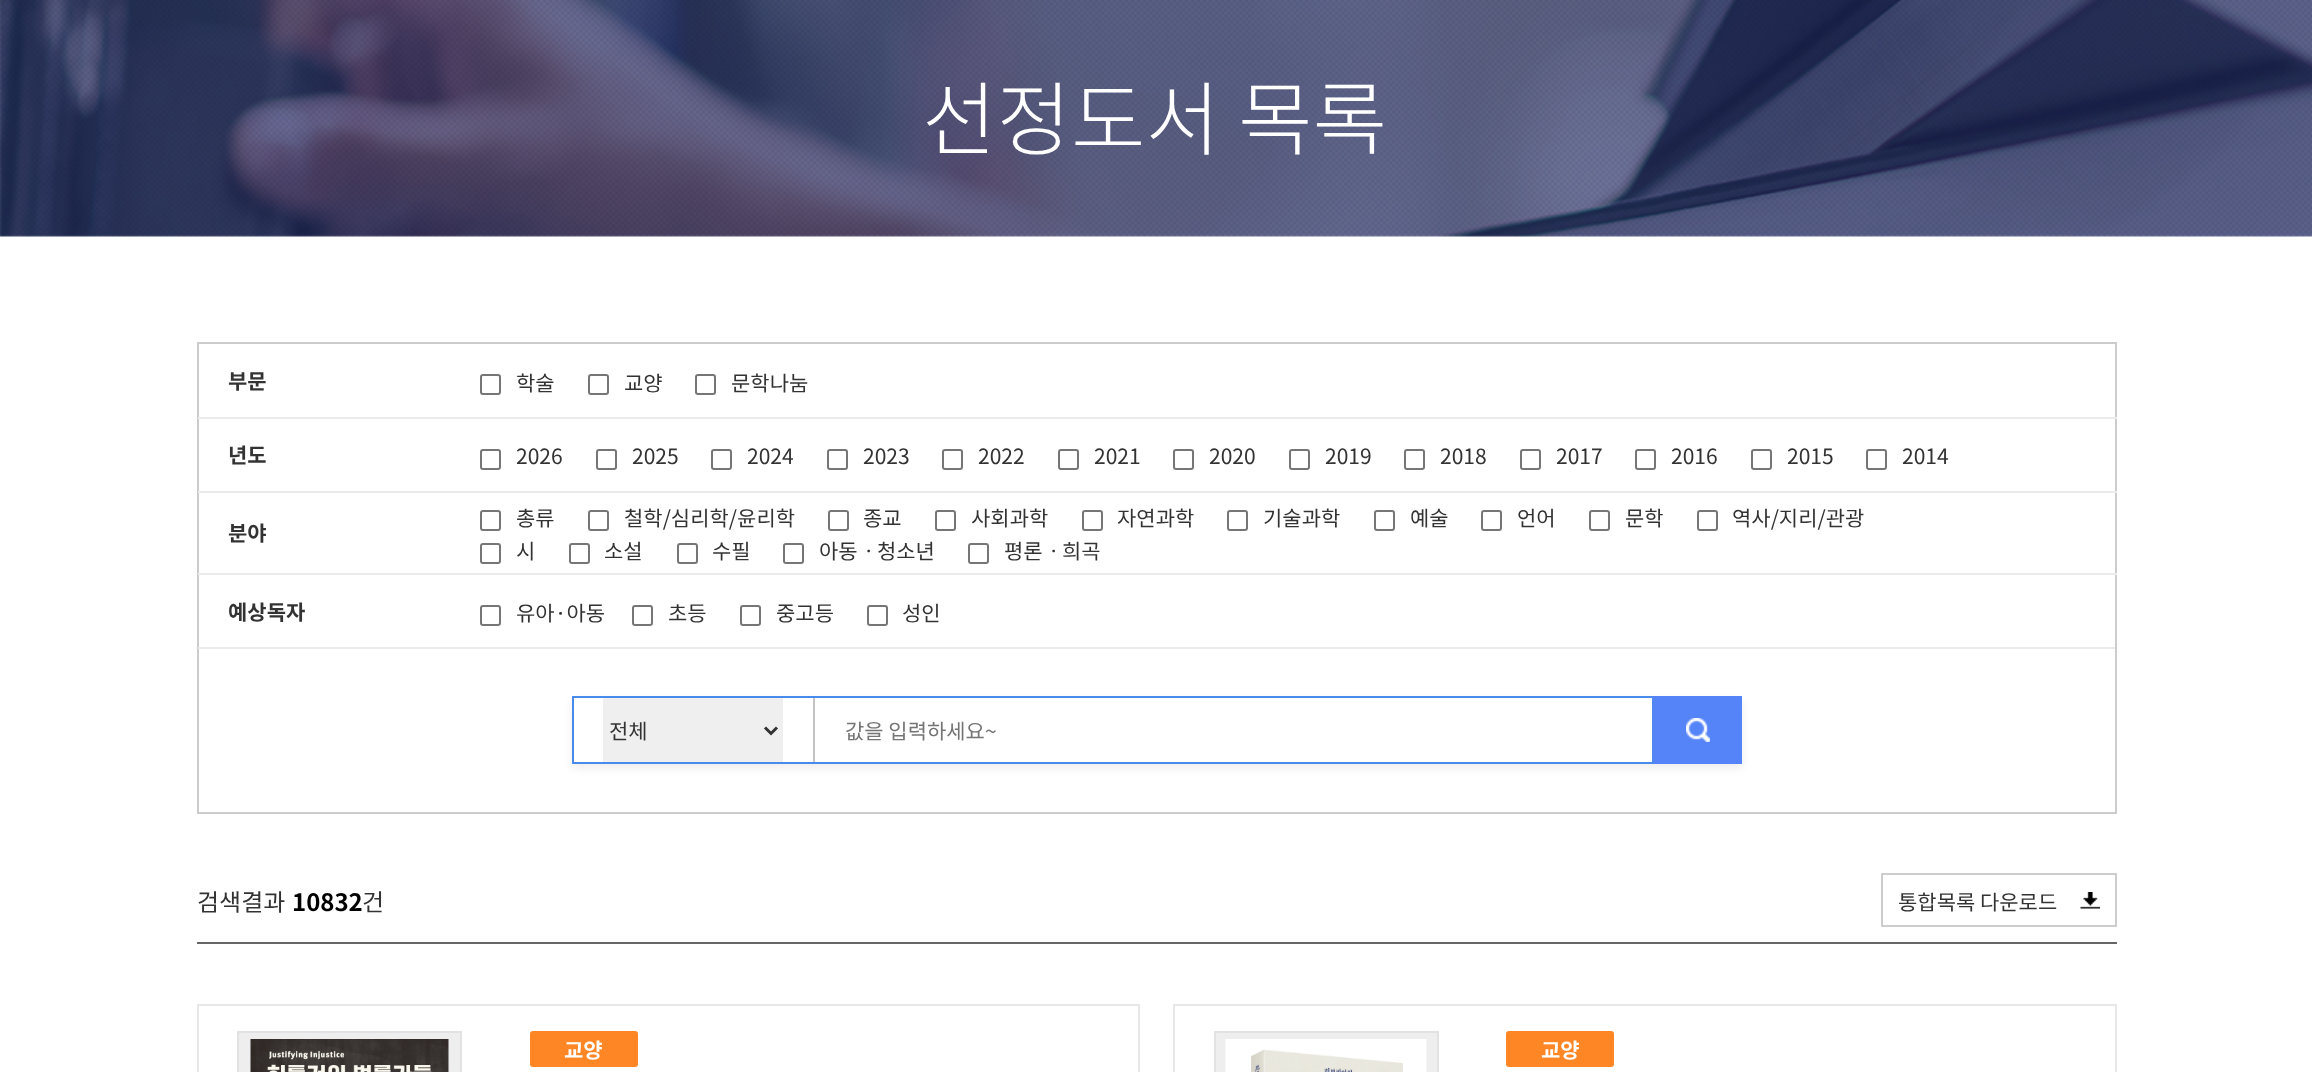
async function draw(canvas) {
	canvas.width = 2312;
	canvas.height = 1072;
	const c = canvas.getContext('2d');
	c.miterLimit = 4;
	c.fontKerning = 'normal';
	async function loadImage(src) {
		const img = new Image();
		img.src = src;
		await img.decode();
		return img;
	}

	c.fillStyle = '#fff';
	c.fillRect(0, 0, 2312, 1072);
	c.drawImage(await loadImage('img1.png'), 0, 0, 2312, 237);
	c.font = '300 81px Noto Sans KR';
	c.fillText('선정도서 목록', 922, 149);
	for (const [x, y, w, h, color] of [
		[2115, 342, 2, 471, '#ccc'],
		[197, 812, 1920, 2, '#ccc'],
		[197, 342, 2, 471, '#ccc'],
		[198, 342, 1917, 2, '#ccc'],
	]) {
		c.fillStyle = color;
		c.fillRect(x, y, w, h);
	}
	c.font = 'bold 21px Noto Sans KR';
	c.fillStyle = '#333';
	c.fillText('부문', 228, 389);
	c.beginPath();
	c.roundRect(481, 375, 19, 19, 2);
	c.strokeStyle = '#767676';
	c.lineWidth = 2;
	c.stroke();
	c.font = '21px Noto Sans KR';
	c.fillText('학술', 516, 391);
	c.beginPath();
	c.roundRect(589, 375, 19, 19, 2);
	c.stroke();
	c.fillText('교양', 624, 391);
	c.beginPath();
	c.roundRect(696, 375, 19, 19, 2);
	c.stroke();
	c.fillText('문학나눔', 731, 391);
	c.font = 'bold 21px Noto Sans KR';
	c.fillText('년도', 228, 463);
	c.fillStyle = '#ebebeb';
	c.fillRect(198, 417, 1919, 2);
	c.beginPath();
	c.roundRect(481, 450, 19, 19, 2);
	c.stroke();
	c.font = '21px Noto Sans KR';
	c.fillStyle = '#333';
	c.fillText('2026', 516, 464);
	c.beginPath();
	c.roundRect(597, 450, 19, 19, 2);
	c.stroke();
	c.fillText('2025', 632, 464);
	c.beginPath();
	c.roundRect(712, 450, 19, 19, 2);
	c.stroke();
	c.fillText('2024', 747, 464);
	c.beginPath();
	c.roundRect(828, 450, 19, 19, 2);
	c.stroke();
	c.fillText('2023', 863, 464);
	c.beginPath();
	c.roundRect(943, 450, 19, 19, 2);
	c.stroke();
	c.fillText('2022', 978, 464);
	c.beginPath();
	c.roundRect(1059, 450, 19, 19, 2);
	c.stroke();
	c.fillText('2021', 1094, 464);
	c.beginPath();
	c.roundRect(1174, 450, 19, 19, 2);
	c.stroke();
	c.fillText('2020', 1209, 464);
	c.beginPath();
	c.roundRect(1290, 450, 19, 19, 2);
	c.stroke();
	c.fillText('2019', 1325, 464);
	c.beginPath();
	c.roundRect(1405, 450, 19, 19, 2);
	c.stroke();
	c.fillText('2018', 1440, 464);
	c.beginPath();
	c.roundRect(1521, 450, 19, 19, 2);
	c.stroke();
	c.fillText('2017', 1556, 464);
	c.beginPath();
	c.roundRect(1636, 450, 19, 19, 2);
	c.stroke();
	c.fillText('2016', 1671, 464);
	c.beginPath();
	c.roundRect(1752, 450, 19, 19, 2);
	c.stroke();
	c.fillText('2015', 1787, 464);
	c.beginPath();
	c.roundRect(1867, 450, 19, 19, 2);
	c.stroke();
	c.fillText('2014', 1902, 464);
	c.font = 'bold 21px Noto Sans KR';
	c.fillText('분야', 228, 541);
	c.fillStyle = '#ebebeb';
	c.fillRect(198, 491, 1919, 2);
	c.beginPath();
	c.roundRect(481, 511, 19, 19, 2);
	c.stroke();
	c.font = '21px Noto Sans KR';
	c.fillStyle = '#333';
	c.fillText('총류', 516, 526);
	c.beginPath();
	c.roundRect(589, 511, 19, 19, 2);
	c.stroke();
	c.fillText('철학/심리학/윤리학', 624, 526);
	c.beginPath();
	c.roundRect(829, 511, 19, 19, 2);
	c.stroke();
	c.fillText('종교', 863, 526);
	c.beginPath();
	c.roundRect(936, 511, 19, 19, 2);
	c.stroke();
	c.fillText('사회과학', 971, 526);
	c.beginPath();
	c.roundRect(1083, 511, 19, 19, 2);
	c.stroke();
	c.fillText('자연과학', 1117, 526);
	c.beginPath();
	c.roundRect(1228, 511, 19, 19, 2);
	c.stroke();
	c.fillText('기술과학', 1263, 526);
	c.beginPath();
	c.roundRect(1375, 511, 19, 19, 2);
	c.stroke();
	c.fillText('예술', 1410, 526);
	c.beginPath();
	c.roundRect(1482, 511, 19, 19, 2);
	c.stroke();
	c.fillText('언어', 1517, 526);
	c.beginPath();
	c.roundRect(1590, 511, 19, 19, 2);
	c.stroke();
	c.fillText('문학', 1625, 526);
	c.beginPath();
	c.roundRect(1698, 511, 19, 19, 2);
	c.stroke();
	c.fillText('역사/지리/관광', 1732, 526);
	c.beginPath();
	c.roundRect(481, 544, 19, 19, 2);
	c.stroke();
	c.fillText('시', 516, 559);
	c.beginPath();
	c.roundRect(570, 544, 19, 19, 2);
	c.stroke();
	c.fillText('소설', 604, 559);
	c.beginPath();
	c.roundRect(678, 544, 19, 19, 2);
	c.stroke();
	c.fillText('수필', 712, 559);
	c.beginPath();
	c.roundRect(784, 544, 19, 19, 2);
	c.stroke();
	c.fillText('아동ㆍ청소년', 819, 559);
	c.beginPath();
	c.roundRect(969, 544, 19, 19, 2);
	c.stroke();
	c.fillText('평론ㆍ희곡', 1004, 559);
	c.font = 'bold 21px Noto Sans KR';
	c.fillText('예상독자', 228, 620);
	c.fillStyle = '#ebebeb';
	c.fillRect(198, 573, 1919, 2);
	c.beginPath();
	c.roundRect(481, 606, 19, 19, 2);
	c.stroke();
	c.font = '21px Noto Sans KR';
	c.fillStyle = '#333';
	c.fillText('유아·아동', 516, 621);
	c.beginPath();
	c.roundRect(633, 606, 19, 19, 2);
	c.stroke();
	c.fillText('초등', 668, 621);
	c.beginPath();
	c.roundRect(741, 606, 19, 19, 2);
	c.stroke();
	c.fillText('중고등', 776, 621);
	c.beginPath();
	c.roundRect(868, 606, 19, 19, 2);
	c.stroke();
	c.fillText('성인', 902, 621);
	c.fillStyle = '#ebebeb';
	c.fillRect(198, 647, 1917, 2);
	c.save();
	c.beginPath();
	c.moveTo(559, 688);
	c.lineTo(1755, 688);
	c.lineTo(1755, 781);
	c.lineTo(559, 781);
	c.closePath();
	c.moveTo(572, 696);
	c.lineTo(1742, 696);
	c.lineTo(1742, 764);
	c.lineTo(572, 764);
	c.closePath();
	c.clip('evenodd');
	c.fillStyle = '#00000012';
	c.filter = 'blur(4px)';
	c.beginPath();
	c.rect(572, 701, 1170, 67);
	c.fill();
	c.filter = 'none';
	c.restore();
	c.strokeStyle = '#4a8aeb';
	c.strokeRect(573, 697, 1079, 66);
	c.fillStyle = '#c4c4c4';
	c.fillRect(813, 698, 2, 64);
	c.fillStyle = '#efefef';
	c.fillRect(603, 698, 180, 64);
	c.beginPath();
	c.moveTo(765, 727.5);
	c.lineTo(771, 733.5);
	c.lineTo(777, 727.5);
	c.strokeStyle = '#333';
	c.lineWidth = 3;
	c.stroke();
	c.fillStyle = '#333';
	c.fillText('전체', 609, 739);
	c.fillStyle = '#fff';
	c.fillRect(1651, 698, 1, 64);
	c.fillStyle = '#757575';
	c.fillText('값을 입력하세요~', 845, 739);
	c.fillStyle = '#5583f8';
	c.fillRect(1653, 696, 89, 68);
	c.drawImage(await loadImage('img2.png'), 1686, 718, 24, 24);
	c.fillStyle = '#666';
	c.fillRect(197, 942, 1920, 2);
	c.font = '24px Noto Sans KR';
	c.fillStyle = '#333';
	c.fillText('검색결과', 197, 911);
	c.font = 'bold 24px Noto Sans KR';
	c.fillStyle = '#000';
	c.fillText('10832', 292, 911);
	c.font = '24px Noto Sans KR';
	c.fillStyle = '#333';
	c.fillText('건', 362, 911);
	c.strokeStyle = '#ccc';
	c.lineWidth = 2;
	c.strokeRect(1882, 874, 234, 52);
	c.drawImage(await loadImage('img3.png'), 2080, 892, 20, 17);
	c.font = '21px Noto Sans KR';
	c.fillText('통합목록 다운로드', 1898, 910);
	c.strokeStyle = '#e7e7e7';
	c.strokeRect(198, 1005, 941, 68);
	c.fillStyle = '#eee';
	c.beginPath();
	c.rect(238, 1032, 223, 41);
	c.fill();
	c.strokeStyle = '#e2e2e2';
	c.stroke();
	c.drawImage(await loadImage('img4.png'), 250, 1039, 199, 33);
	c.fillStyle = '#ff8624';
	c.beginPath();
	c.roundRect(530, 1031, 108, 36, 3);
	c.fill();
	c.font = 'bold 21px Noto Sans KR';
	c.fillStyle = '#fff';
	c.fillText('교양', 564, 1058);
	c.strokeStyle = '#e7e7e7';
	c.strokeRect(1174, 1005, 942, 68);
	c.fillStyle = '#eee';
	c.beginPath();
	c.rect(1215, 1032, 223, 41);
	c.fill();
	c.strokeStyle = '#e2e2e2';
	c.stroke();
	c.drawImage(await loadImage('img5.png'), 1225, 1039, 202, 33);
	c.fillStyle = '#ff8624';
	c.beginPath();
	c.roundRect(1506, 1031, 108, 36, 3);
	c.fill();
	c.fillStyle = '#fff';
	c.fillText('교양', 1541, 1058);
}

draw(document.querySelector('canvas'));
